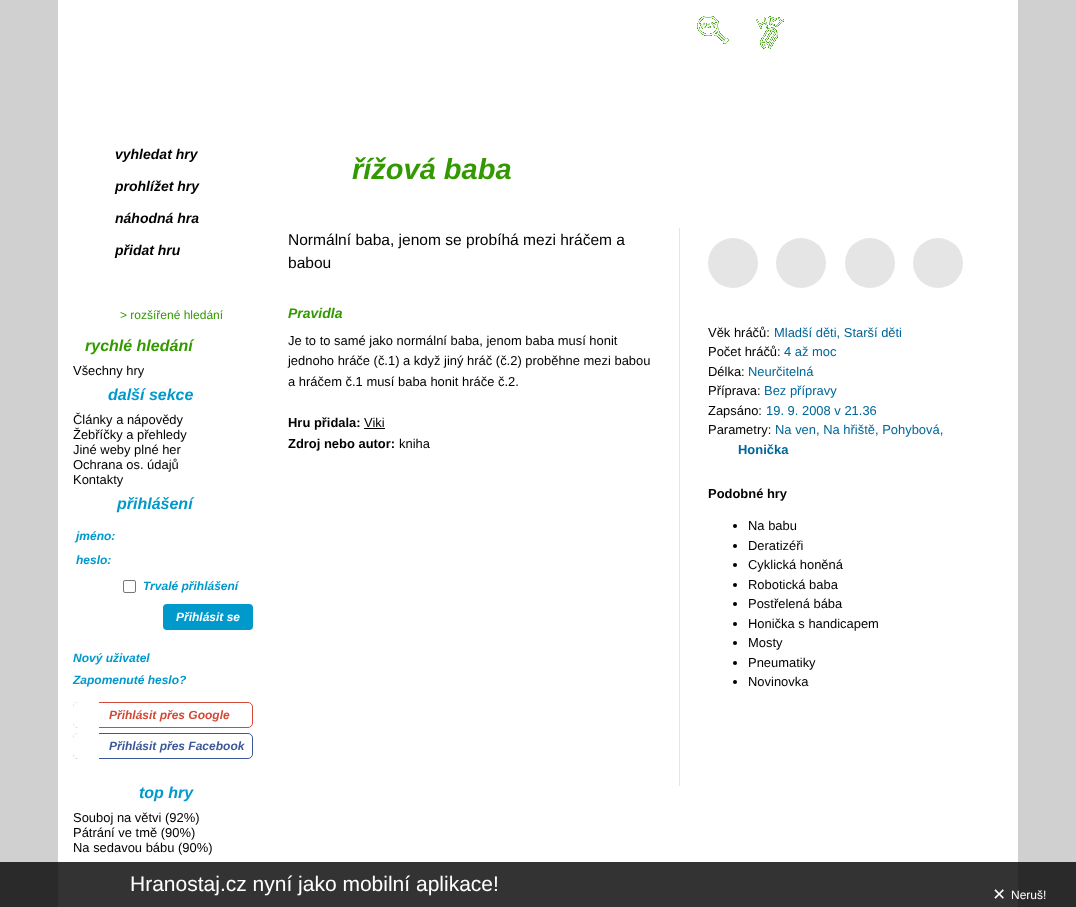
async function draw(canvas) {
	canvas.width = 1076;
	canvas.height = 907;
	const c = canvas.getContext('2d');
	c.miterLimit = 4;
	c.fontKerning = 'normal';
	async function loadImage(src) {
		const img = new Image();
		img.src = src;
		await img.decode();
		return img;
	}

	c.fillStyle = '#d0d0d0';
	c.fillRect(0, 0, 1076, 907);
	c.fillStyle = '#fff';
	c.fillRect(58, 0, 960, 907);
	c.drawImage(await loadImage('img1.png'), 697, 16, 32, 28);
	c.drawImage(await loadImage('img2.png'), 756, 16, 28, 33);
	c.font = 'italic bold 14px Liberation Sans';
	c.fillStyle = '#000';
	for (const [text, x, y] of [
		['vyhledat hry', 115, 159],
		['prohlížet hry', 115, 191],
		['náhodná hra', 115, 223],
		['přidat hru', 115, 255],
	]) {
		c.fillText(text, x, y);
	}
	c.font = '12px Liberation Sans';
	c.fillStyle = '#390';
	c.fillText('> rozšířené hledání', 120, 319);
	c.font = 'italic bold 16px Liberation Sans';
	c.fillText('rychlé hledání', 85, 351);
	c.font = '12.95px Liberation Sans';
	c.fillStyle = '#000';
	c.fillText('Všechny hry', 73, 375);
	c.font = 'italic bold 16px Liberation Sans';
	c.fillStyle = '#09c';
	c.fillText('další sekce', 108, 400);
	c.font = '12.95px Liberation Sans';
	c.fillStyle = '#000';
	for (const [text, x, y] of [
		['Články a nápovědy', 73, 424],
		['Žebříčky a přehledy', 73, 439],
		['Jiné weby plné her', 73, 454],
		['Ochrana os. údajů', 73, 469],
		['Kontakty', 73, 484],
	]) {
		c.fillText(text, x, y);
	}
	c.font = 'italic bold 16px Liberation Sans';
	c.fillStyle = '#09c';
	c.fillText('přihlášení', 117, 509);
	c.font = 'italic bold 12px Liberation Sans';
	c.fillText('jméno:', 76, 540);
	c.fillText('heslo:', 76, 564);
	c.beginPath();
	c.roundRect(123.5, 580.5, 12, 12, 1.5);
	c.strokeStyle = '#767676';
	c.stroke();
	c.fillText('Trvalé přihlášení', 143, 590);
	c.beginPath();
	c.roundRect(163, 604, 90, 26, 4);
	c.fill();
	c.fillStyle = '#fff';
	c.fillText('Přihlásit se', 176, 621);
	c.fillStyle = '#09c';
	c.fillText('Nový uživatel', 73, 662);
	c.fillText('Zapomenuté heslo?', 73, 684);
	c.beginPath();
	c.roundRect(73.5, 702.5, 179, 25, 4.5);
	c.strokeStyle = '#d34836';
	c.stroke();
	c.fillStyle = '#fff';
	c.beginPath();
	c.roundRect(73, 702, 26, 26, [5, 0, 0, 5]);
	c.fill();
	c.fillStyle = '#d34836';
	c.fillText('Přihlásit přes Google', 109, 719);
	c.beginPath();
	c.roundRect(73.5, 733.5, 179, 25, 4.5);
	c.strokeStyle = '#3b5998';
	c.stroke();
	c.fillStyle = '#fff';
	c.beginPath();
	c.roundRect(73, 733, 26, 26, [5, 0, 0, 5]);
	c.fill();
	c.fillStyle = '#3b5998';
	c.fillText('Přihlásit přes Facebook', 109, 750);
	c.font = 'italic bold 16px Liberation Sans';
	c.fillStyle = '#09c';
	c.fillText('top hry', 139, 798);
	c.font = '12.95px Liberation Sans';
	c.fillStyle = '#000';
	for (const [text, x, y] of [
		['Souboj na větvi (92%)', 73, 822],
		['Pátrání ve tmě (90%)', 73, 837],
		['Na sedavou bábu (90%)', 73, 852],
	]) {
		c.fillText(text, x, y);
	}
	c.font = 'italic bold 29px Liberation Sans';
	c.fillStyle = '#390';
	c.fillText('řížová baba', 352, 179);
	c.font = '15.55px Liberation Sans';
	c.fillStyle = '#000';
	c.fillText('Normální baba, jenom se probíhá mezi hráčem a', 288, 245);
	c.fillText('babou', 288, 268);
	c.font = 'italic bold 14px Liberation Sans';
	c.fillStyle = '#390';
	c.fillText('Pravidla', 288, 318);
	c.font = '12.95px Liberation Sans';
	c.fillStyle = '#000';
	for (const [text, x, y] of [
		['Je to to samé jako normální baba, jenom baba musí honit', 288, 345],
		['jednoho hráče (č.1) a když jiný hráč (č.2) proběhne mezi babou', 288, 365],
		['a hráčem č.1 musí baba honit hráče č.2.', 288, 386],
	]) {
		c.fillText(text, x, y);
	}
	c.fillStyle = '#e5e5e5';
	c.fillRect(679, 228, 1, 558);
	c.beginPath();
	c.arc(733, 263, 25, 0, 2 * Math.PI);
	c.fill();
	c.beginPath();
	c.arc(801, 263, 25, 0, 2 * Math.PI);
	c.fill();
	c.beginPath();
	c.arc(870, 263, 25, 0, 2 * Math.PI);
	c.fill();
	c.beginPath();
	c.arc(938, 263, 25, 0, 2 * Math.PI);
	c.fill();
	c.fillStyle = '#000';
	c.fillText('Věk hráčů:', 708, 337);
	c.fillStyle = '#069';
	c.fillText('Mladší děti, Starší děti', 774, 337);
	c.fillStyle = '#000';
	c.fillText('Počet hráčů:', 708, 356);
	c.fillStyle = '#069';
	c.fillText('4 až moc', 784, 356);
	c.fillStyle = '#000';
	c.fillText('Délka:', 708, 376);
	c.fillStyle = '#069';
	c.fillText('Neurčitelná', 748, 376);
	c.fillStyle = '#000';
	c.fillText('Příprava:', 708, 395);
	c.fillStyle = '#069';
	c.fillText('Bez přípravy', 764, 395);
	c.fillStyle = '#000';
	c.fillText('Zapsáno:', 708, 415);
	c.fillStyle = '#069';
	c.fillText('19. 9. 2008 v 21.36', 766, 415);
	c.fillStyle = '#000';
	c.fillText('Parametry:', 708, 434);
	c.fillStyle = '#069';
	c.fillText('Na ven, Na hřiště, Pohybová,', 775, 434);
	c.font = 'bold 12.95px Liberation Sans';
	c.fillText('Honička', 738, 454);
	c.fillStyle = '#000';
	c.fillText('Podobné hry', 708, 498);
	c.beginPath();
	c.arc(735, 526, 2, 0, 2 * Math.PI);
	c.fill();
	c.font = '12.95px Liberation Sans';
	c.fillText('Na babu', 748, 530);
	c.beginPath();
	c.arc(735, 546, 2, 0, 2 * Math.PI);
	c.fill();
	c.fillText('Deratizéři', 748, 550);
	c.beginPath();
	c.arc(735, 565, 2, 0, 2 * Math.PI);
	c.fill();
	c.fillText('Cyklická honěná', 748, 569);
	c.beginPath();
	c.arc(735, 585, 2, 0, 2 * Math.PI);
	c.fill();
	c.fillText('Robotická baba', 748, 589);
	c.beginPath();
	c.arc(735, 604, 2, 0, 2 * Math.PI);
	c.fill();
	c.fillText('Postřelená bába', 748, 608);
	c.beginPath();
	c.arc(735, 624, 2, 0, 2 * Math.PI);
	c.fill();
	c.fillText('Honička s handicapem', 748, 628);
	c.beginPath();
	c.arc(735, 643, 2, 0, 2 * Math.PI);
	c.fill();
	c.fillText('Mosty', 748, 647);
	c.beginPath();
	c.arc(735, 663, 2, 0, 2 * Math.PI);
	c.fill();
	c.fillText('Pneumatiky', 748, 667);
	c.beginPath();
	c.arc(735, 682, 2, 0, 2 * Math.PI);
	c.fill();
	c.fillText('Novinovka', 748, 686);
	c.font = 'bold 12.95px Liberation Sans';
	c.fillText('Hru přidala:', 288, 427);
	c.font = '12.95px Liberation Sans';
	c.fillText('Viki', 364, 427);
	c.fillRect(364, 428, 21, 1);
	c.font = 'bold 12.95px Liberation Sans';
	c.fillText('Zdroj nebo autor:', 288, 448);
	c.font = '12.95px Liberation Sans';
	c.fillText('kniha', 399, 448);
	c.fillStyle = '#000000cc';
	c.fillRect(0, 862, 1076, 45);
	c.font = '21px Liberation Sans';
	c.fillStyle = '#fff';
	c.fillText('Hranostaj.cz nyní jako mobilní aplikace!', 130, 891);
	c.fillText('×', 993, 901);
	c.font = '12px Liberation Sans';
	c.fillText('Neruš!', 1011, 899);
}

draw(document.querySelector('canvas'));
